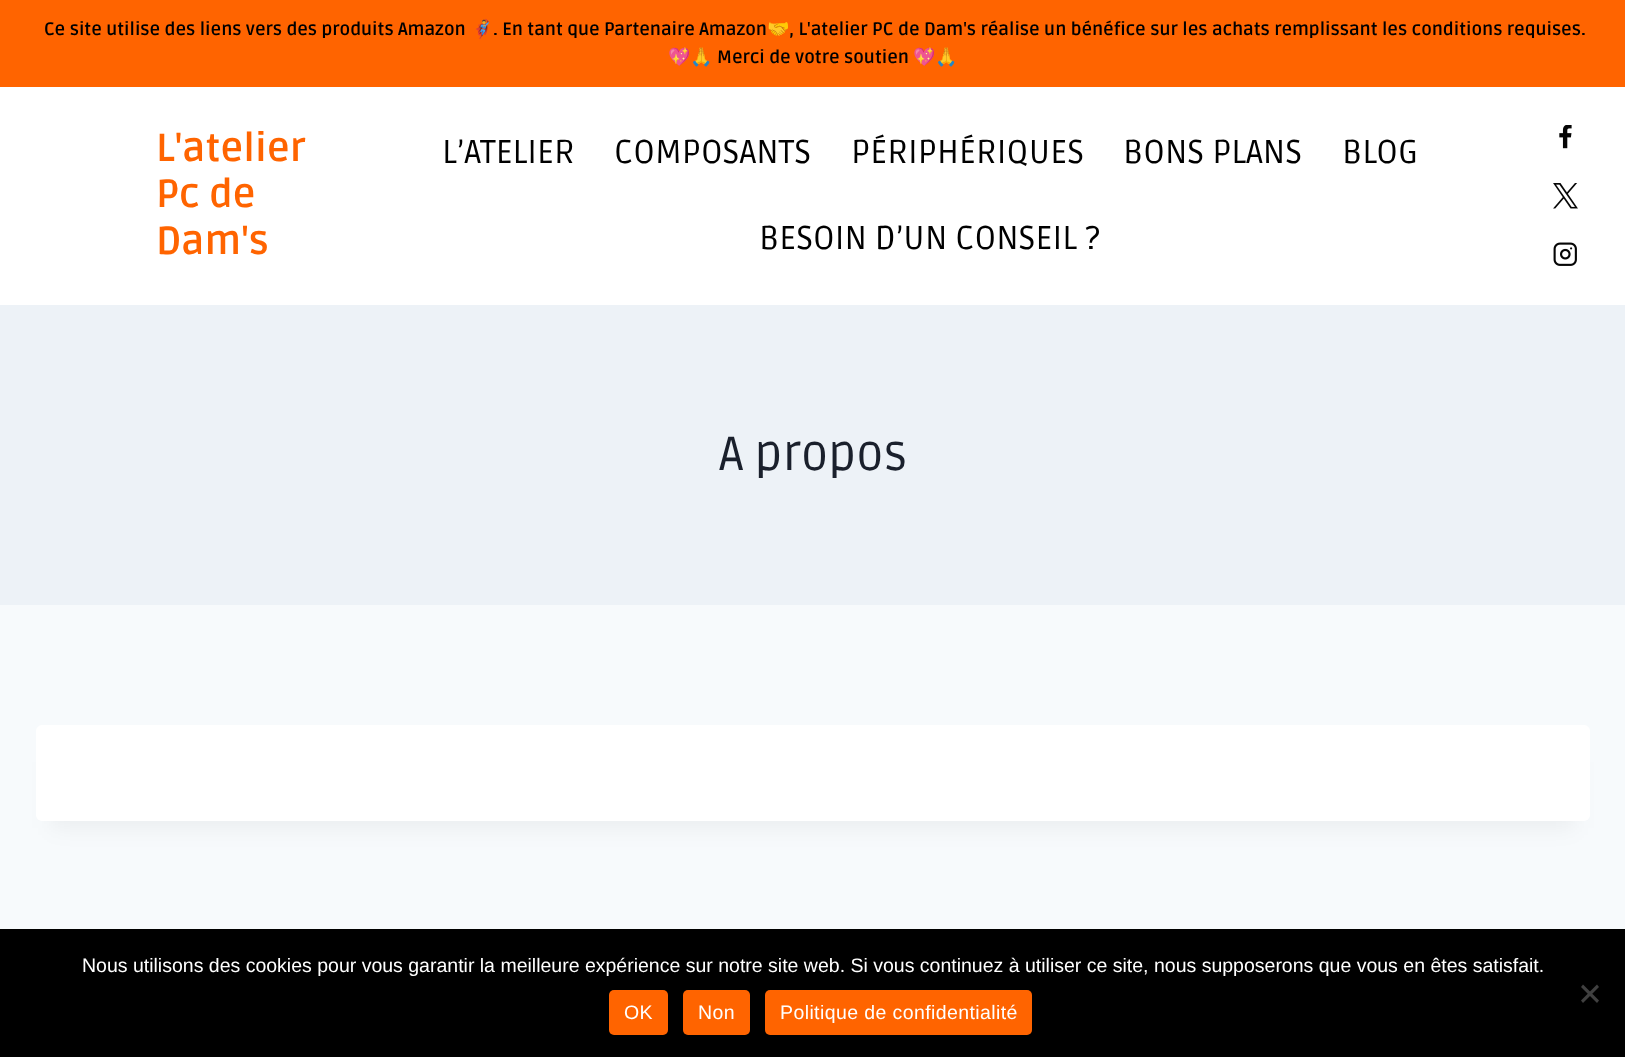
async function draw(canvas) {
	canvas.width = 1625;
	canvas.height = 1057;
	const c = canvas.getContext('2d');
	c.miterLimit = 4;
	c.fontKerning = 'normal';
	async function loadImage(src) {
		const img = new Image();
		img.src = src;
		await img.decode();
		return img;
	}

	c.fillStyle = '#f7fafc';
	c.fillRect(0, 0, 1625, 1057);
	c.fillStyle = '#fff';
	c.fillRect(0, 87, 1625, 218);
	c.fillStyle = '#ff6400';
	c.fillRect(0, 0, 1625, 87);
	c.font = 'bold 18px Ruda';
	c.fillStyle = '#000';
	c.fillText('Ce site utilise des liens vers des produits Amazon', 44, 35);
	c.font = 'bold 18px Noto Color Emoji';
	c.fillText('🦸‍♂️', 471, 35);
	c.font = 'bold 18px Ruda';
	c.fillText('. En tant que Partenaire Amazon', 493, 35);
	c.font = 'bold 18px Noto Color Emoji';
	c.fillText('🤝', 767, 35);
	c.font = 'bold 18px Ruda';
	c.fillText(', L\'atelier PC de Dam\'s réalise un bénéfice sur les achats remplissant les conditions requises.', 789, 35);
	c.font = 'bold 18px Noto Color Emoji';
	c.fillText('💖🙏', 668, 63);
	c.font = 'bold 18px Ruda';
	c.fillText('Merci de votre soutien', 717, 63);
	c.font = 'bold 18px Noto Color Emoji';
	c.fillText('💖🙏', 913, 63);
	c.font = 'bold 39px Ruda';
	c.fillStyle = '#ff6400';
	for (const [text, x, y] of [
		['L\'atelier', 156, 161],
		['Pc de', 156, 207],
		['Dam\'s', 156, 254],
	]) {
		c.fillText(text, x, y);
	}
	c.font = '33px Ruda';
	c.fillStyle = '#000';
	for (const [text, x, y] of [
		['L’ATELIER', 442, 163],
		['COMPOSANTS', 614, 163],
		['PÉRIPHÉRIQUES', 851, 163],
		['BONS PLANS', 1123, 163],
		['BLOG', 1342, 163],
		['BESOIN D’UN CONSEIL ?', 759, 249],
	]) {
		c.fillText(text, x, y);
	}
	c.drawImage(await loadImage('img1.png'), 1559, 125, 13, 24);
	c.drawImage(await loadImage('img2.png'), 1553, 183, 25, 26);
	c.drawImage(await loadImage('img3.png'), 1553, 242, 24, 24);
	c.fillStyle = '#edf2f7';
	c.fillRect(0, 305, 1625, 300);
	c.font = '48px Ruda';
	c.fillStyle = '#1a202c';
	c.fillText('A propos', 719, 470);
	c.fillStyle = '#0000000d';
	c.filter = 'blur(11px)';
	c.beginPath();
	c.rect(51, 762, 1524, 66);
	c.fill();
	c.filter = 'none';
	c.fillStyle = '#fff';
	c.beginPath();
	c.roundRect(36, 725, 1554, 96, 6);
	c.fill();
	c.fillStyle = '#000';
	c.fillRect(0, 929, 1625, 128);
	c.font = '19.5px Liberation Sans';
	c.fillStyle = '#fff';
	c.fillText('Nous utilisons des cookies pour vous garantir la meilleure expérience sur notre site web. Si vous continuez à utiliser ce site, nous supposerons que vous en êtes satisfait.', 82, 972);
	c.fillStyle = '#404040';
	c.beginPath();
	c.moveTo(1597, 984.5);
	c.lineTo(1599, 987);
	c.lineTo(1583, 1003);
	c.lineTo(1581, 1000.5);
	c.closePath();
	c.fill();
	c.beginPath();
	c.moveTo(1581, 987);
	c.lineTo(1583, 984.5);
	c.lineTo(1599, 1000.5);
	c.lineTo(1597, 1003);
	c.closePath();
	c.fill();
	c.fillStyle = '#ff6400';
	c.beginPath();
	c.roundRect(609, 990, 59, 45, 5);
	c.fill();
	c.letterSpacing = '0.4px';
	c.fillStyle = '#fff';
	c.fillText('OK', 624, 1019);
	c.fillStyle = '#ff6400';
	c.beginPath();
	c.roundRect(683, 990, 67, 45, 5);
	c.fill();
	c.fillStyle = '#fff';
	c.fillText('Non', 698, 1019);
	c.fillStyle = '#ff6400';
	c.beginPath();
	c.roundRect(765, 990, 267, 45, 5);
	c.fill();
	c.fillStyle = '#fff';
	c.fillText('Politique de confidentialité', 780, 1019);
}

draw(document.querySelector('canvas'));
